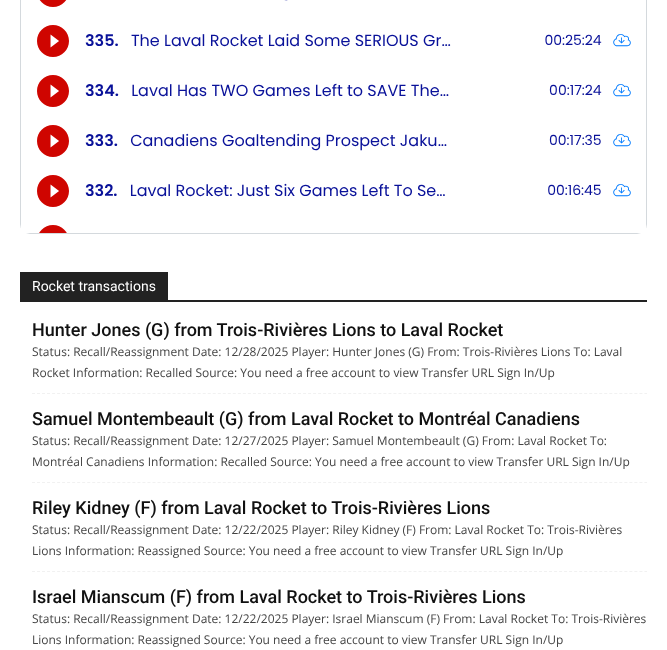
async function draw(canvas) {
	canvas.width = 667;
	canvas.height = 650;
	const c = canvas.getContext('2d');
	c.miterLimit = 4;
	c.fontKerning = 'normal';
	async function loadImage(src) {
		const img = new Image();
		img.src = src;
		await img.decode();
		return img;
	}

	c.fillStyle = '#fff';
	c.fillRect(0, 0, 667, 650);
	c.drawImage(await loadImage('img1.png'), 20, 0, 627, 234);
	c.fillStyle = '#222';
	c.fillRect(20, 300, 627, 2);
	c.fillRect(20, 272, 148, 28);
	c.font = '14px Roboto';
	c.fillStyle = '#fff';
	c.fillText('Rocket transactions', 32, 291);
	c.beginPath();
	c.moveTo(32, 393.5);
	c.lineTo(647, 393.5);
	c.strokeStyle = '#f1f1f1';
	c.setLineDash([3, 2.02]);
	c.stroke();
	c.font = '500 18px Roboto';
	c.fillStyle = '#111';
	c.fillText('Hunter Jones (G) from Trois-Rivières Lions to Laval Rocket', 32, 336);
	c.font = '12px Open Sans';
	c.fillStyle = '#444';
	c.fillText('Status: Recall/Reassignment Date: 12/28/2025 Player: Hunter Jones (G) From: Trois-Rivières Lions To: Laval', 32, 356);
	c.fillText('Rocket Information: Recalled Source: You need a free account to view Transfer URL Sign In/Up', 32, 377);
	c.beginPath();
	c.moveTo(32, 482.5);
	c.lineTo(647, 482.5);
	c.stroke();
	c.font = '500 18px Roboto';
	c.fillStyle = '#111';
	c.fillText('Samuel Montembeault (G) from Laval Rocket to Montréal Canadiens', 32, 425);
	c.font = '12px Open Sans';
	c.fillStyle = '#444';
	c.fillText('Status: Recall/Reassignment Date: 12/27/2025 Player: Samuel Montembeault (G) From: Laval Rocket To:', 32, 445);
	c.fillText('Montréal Canadiens Information: Recalled Source: You need a free account to view Transfer URL Sign In/Up', 32, 466);
	c.beginPath();
	c.moveTo(32, 571.5);
	c.lineTo(647, 571.5);
	c.stroke();
	c.font = '500 18px Roboto';
	c.fillStyle = '#111';
	c.fillText('Riley Kidney (F) from Laval Rocket to Trois-Rivières Lions', 32, 514);
	c.font = '12px Open Sans';
	c.fillStyle = '#444';
	c.fillText('Status: Recall/Reassignment Date: 12/22/2025 Player: Riley Kidney (F) From: Laval Rocket To: Trois-Rivières', 32, 534);
	c.fillText('Lions Information: Reassigned Source: You need a free account to view Transfer URL Sign In/Up', 32, 555);
	c.font = '500 18px Roboto';
	c.fillStyle = '#111';
	c.fillText('Israel Mianscum (F) from Laval Rocket to Trois-Rivières Lions', 32, 603);
	c.font = '12px Open Sans';
	c.fillStyle = '#444';
	c.fillText('Status: Recall/Reassignment Date: 12/22/2025 Player: Israel Mianscum (F) From: Laval Rocket To: Trois-Rivières', 32, 623);
	c.fillText('Lions Information: Reassigned Source: You need a free account to view Transfer URL Sign In/Up', 32, 644);
}

draw(document.querySelector('canvas'));
